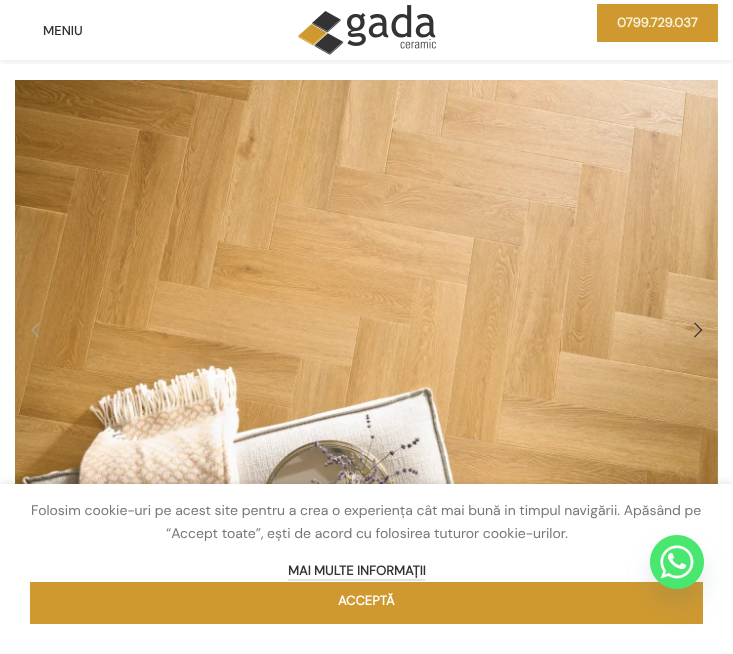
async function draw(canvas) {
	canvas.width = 733;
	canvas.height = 654;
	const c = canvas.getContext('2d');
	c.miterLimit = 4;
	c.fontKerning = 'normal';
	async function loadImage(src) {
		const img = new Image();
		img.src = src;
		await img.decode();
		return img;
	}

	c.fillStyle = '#fff';
	c.fillRect(0, 0, 733, 654);
	c.save();
	c.beginPath();
	c.rect(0, 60, 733, 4);
	c.clip();
	c.fillStyle = '#0000001a';
	c.filter = 'blur(4px)';
	c.beginPath();
	c.rect(0, 1, 733, 60);
	c.fill();
	c.filter = 'none';
	c.restore();
	c.drawImage(await loadImage('img1.png'), 298, 5, 138, 50);
	c.fillStyle = '#cf9930';
	c.fillRect(597, 4, 121, 38);
	c.font = 'bold 13px DM Sans';
	c.fillStyle = '#f5f5dc';
	c.fillText('0799.729.037', 617, 27);
	c.font = '500 13px DM Sans';
	c.fillStyle = '#333';
	c.fillText('MENIU', 43, 35);
	c.drawImage(await loadImage('img2.png'), 15, 80, 703, 404);
	c.drawImage(await loadImage('img3.png'), 31, 322, 9, 16);
	c.drawImage(await loadImage('img4.png'), 694, 322, 9, 16);
	c.fillStyle = '#00000024';
	c.filter = 'blur(4.5px)';
	c.beginPath();
	c.rect(0, 484, 733, 170);
	c.fill();
	c.filter = 'none';
	c.fillStyle = '#fff';
	c.fillRect(0, 484, 733, 170);
	c.font = '14px DM Sans';
	c.fillStyle = '#777';
	c.fillText('Folosim cookie-uri pe acest site pentru a crea o experiența cât mai bună in timpul navigării. Apăsând pe', 31, 515);
	c.fillText('“Accept toate”, ești de acord cu folosirea tuturor cookie-urilor.', 166, 538);
	c.font = 'bold 13px DM Sans';
	c.fillStyle = '#333';
	c.fillText('MAI MULTE INFORMAȚII', 288, 575);
	c.fillStyle = '#e4e4e4';
	c.fillRect(288, 579, 137, 2);
	c.fillStyle = '#cf9930';
	c.fillRect(30, 582, 673, 42);
	c.fillStyle = '#fff';
	c.fillText('ACCEPTĂ', 338, 605);
	c.fillStyle = '#49687e29';
	c.filter = 'blur(12px)';
	c.beginPath();
	c.roundRect(650, 551, 54, 54, 27);
	c.fill();
	c.filter = 'none';
	c.drawImage(await loadImage('img5.png'), 650, 535, 54, 54);
}

draw(document.querySelector('canvas'));
